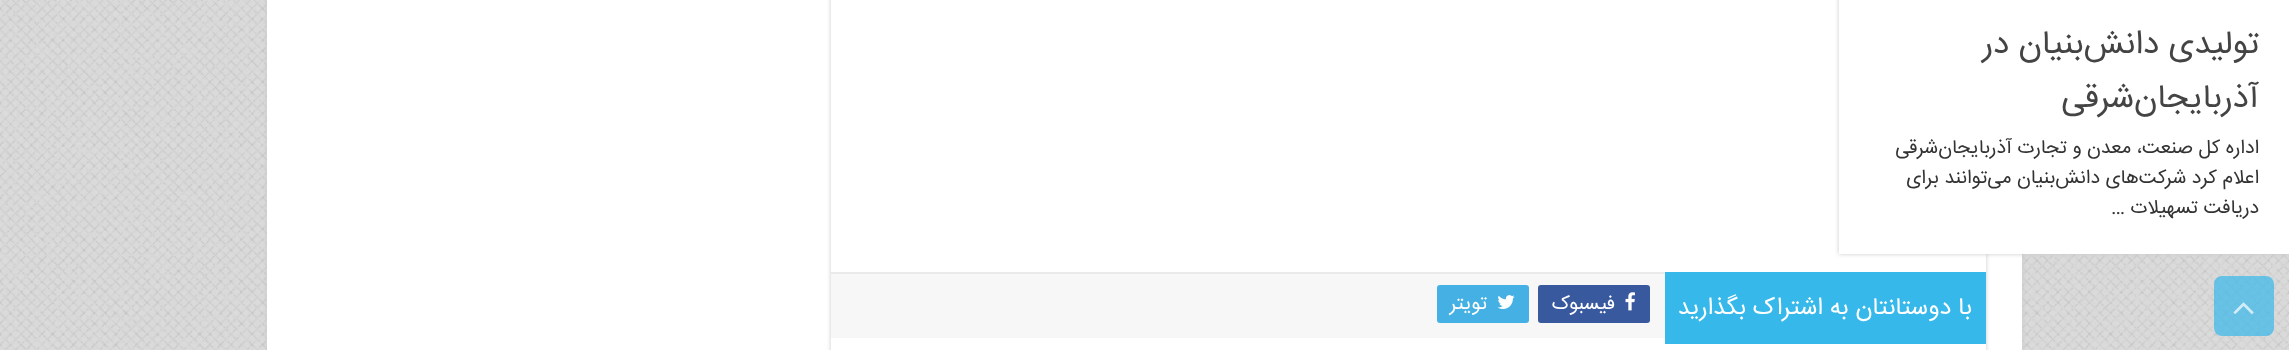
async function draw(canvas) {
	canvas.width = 2289;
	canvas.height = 350;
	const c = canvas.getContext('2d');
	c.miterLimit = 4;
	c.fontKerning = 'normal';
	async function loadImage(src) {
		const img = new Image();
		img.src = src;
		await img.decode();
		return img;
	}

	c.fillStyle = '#d1d1d1';
	c.fillRect(0, 0, 2289, 350);
	c.drawImage(await loadImage('img1.png'), 0, 0, 2289, 350);
	c.fillStyle = '#cacaca';
	c.filter = 'blur(2px)';
	c.beginPath();
	c.rect(267, -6, 1755, 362);
	c.fill();
	c.filter = 'none';
	c.fillStyle = '#fff';
	c.fillRect(267, 0, 1755, 350);
	c.fillStyle = '#cacaca';
	c.filter = 'blur(2px)';
	c.beginPath();
	c.rect(1839, -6, 450, 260);
	c.fill();
	c.filter = 'none';
	c.save();
	c.beginPath();
	c.moveTo(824, 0);
	c.lineTo(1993, 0);
	c.lineTo(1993, 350);
	c.lineTo(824, 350);
	c.closePath();
	c.moveTo(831, -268);
	c.lineTo(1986, -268);
	c.lineTo(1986, 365);
	c.lineTo(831, 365);
	c.closePath();
	c.clip('evenodd');
	c.filter = 'blur(2px)';
	c.beginPath();
	c.rect(831, -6, 1155, 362);
	c.fill();
	c.filter = 'none';
	c.restore();
	c.fillStyle = '#fff';
	c.fillRect(1839, 0, 450, 254);
	c.direction = 'rtl';
	c.font = '33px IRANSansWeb';
	c.fillStyle = '#444';
	c.fillText('تولیدی دانش‌بنیان در', 2259, 53);
	c.fillText('آذربایجان‌شرقی', 2259, 107);
	c.font = '19.5px IRANSansWeb';
	c.fillStyle = '#333';
	for (const [text, x, y] of [
		['اداره کل صنعت، معدن و تجارت آذربایجان‌شرقی', 2259, 153],
		['اعلام کرد شرکت‌های دانش‌بنیان می‌توانند برای', 2259, 183],
		['دریافت تسهیلات …', 2259, 213],
	]) {
		c.fillText(text, x, y);
	}
	for (const [x, y, w, h, color] of [
		[831, 274, 834, 64, '#f7f7f7'],
		[831, 272, 834, 2, '#eaeaea'],
		[1665, 272, 321, 72, '#37b8eb'],
	]) {
		c.fillStyle = color;
		c.fillRect(x, y, w, h);
	}
	c.font = '24px IRANSansWeb';
	c.fillStyle = '#fff';
	c.fillText('با دوستانتان به اشتراک بگذارید', 1972, 314);
	c.fillStyle = '#39599f';
	c.beginPath();
	c.roundRect(1538, 285, 112, 38, 3);
	c.fill();
	c.drawImage(await loadImage('img2.png'), 1625, 292, 10, 19);
	c.font = '19.5px IRANSansWeb';
	c.fillStyle = '#fff';
	c.fillText('فیسبوک', 1615, 309);
	c.fillStyle = '#45b0e3';
	c.beginPath();
	c.roundRect(1437, 285, 92, 38, 3);
	c.fill();
	c.drawImage(await loadImage('img3.png'), 1497, 295, 18, 14);
	c.fillStyle = '#fff';
	c.fillText('تویتر', 1487, 309);
	c.fillStyle = '#37b8ebb3';
	c.beginPath();
	c.roundRect(2214, 276, 60, 60, 8);
	c.fill();
	c.drawImage(await loadImage('img4.png'), 2233, 302, 21, 12);
}

draw(document.querySelector('canvas'));
